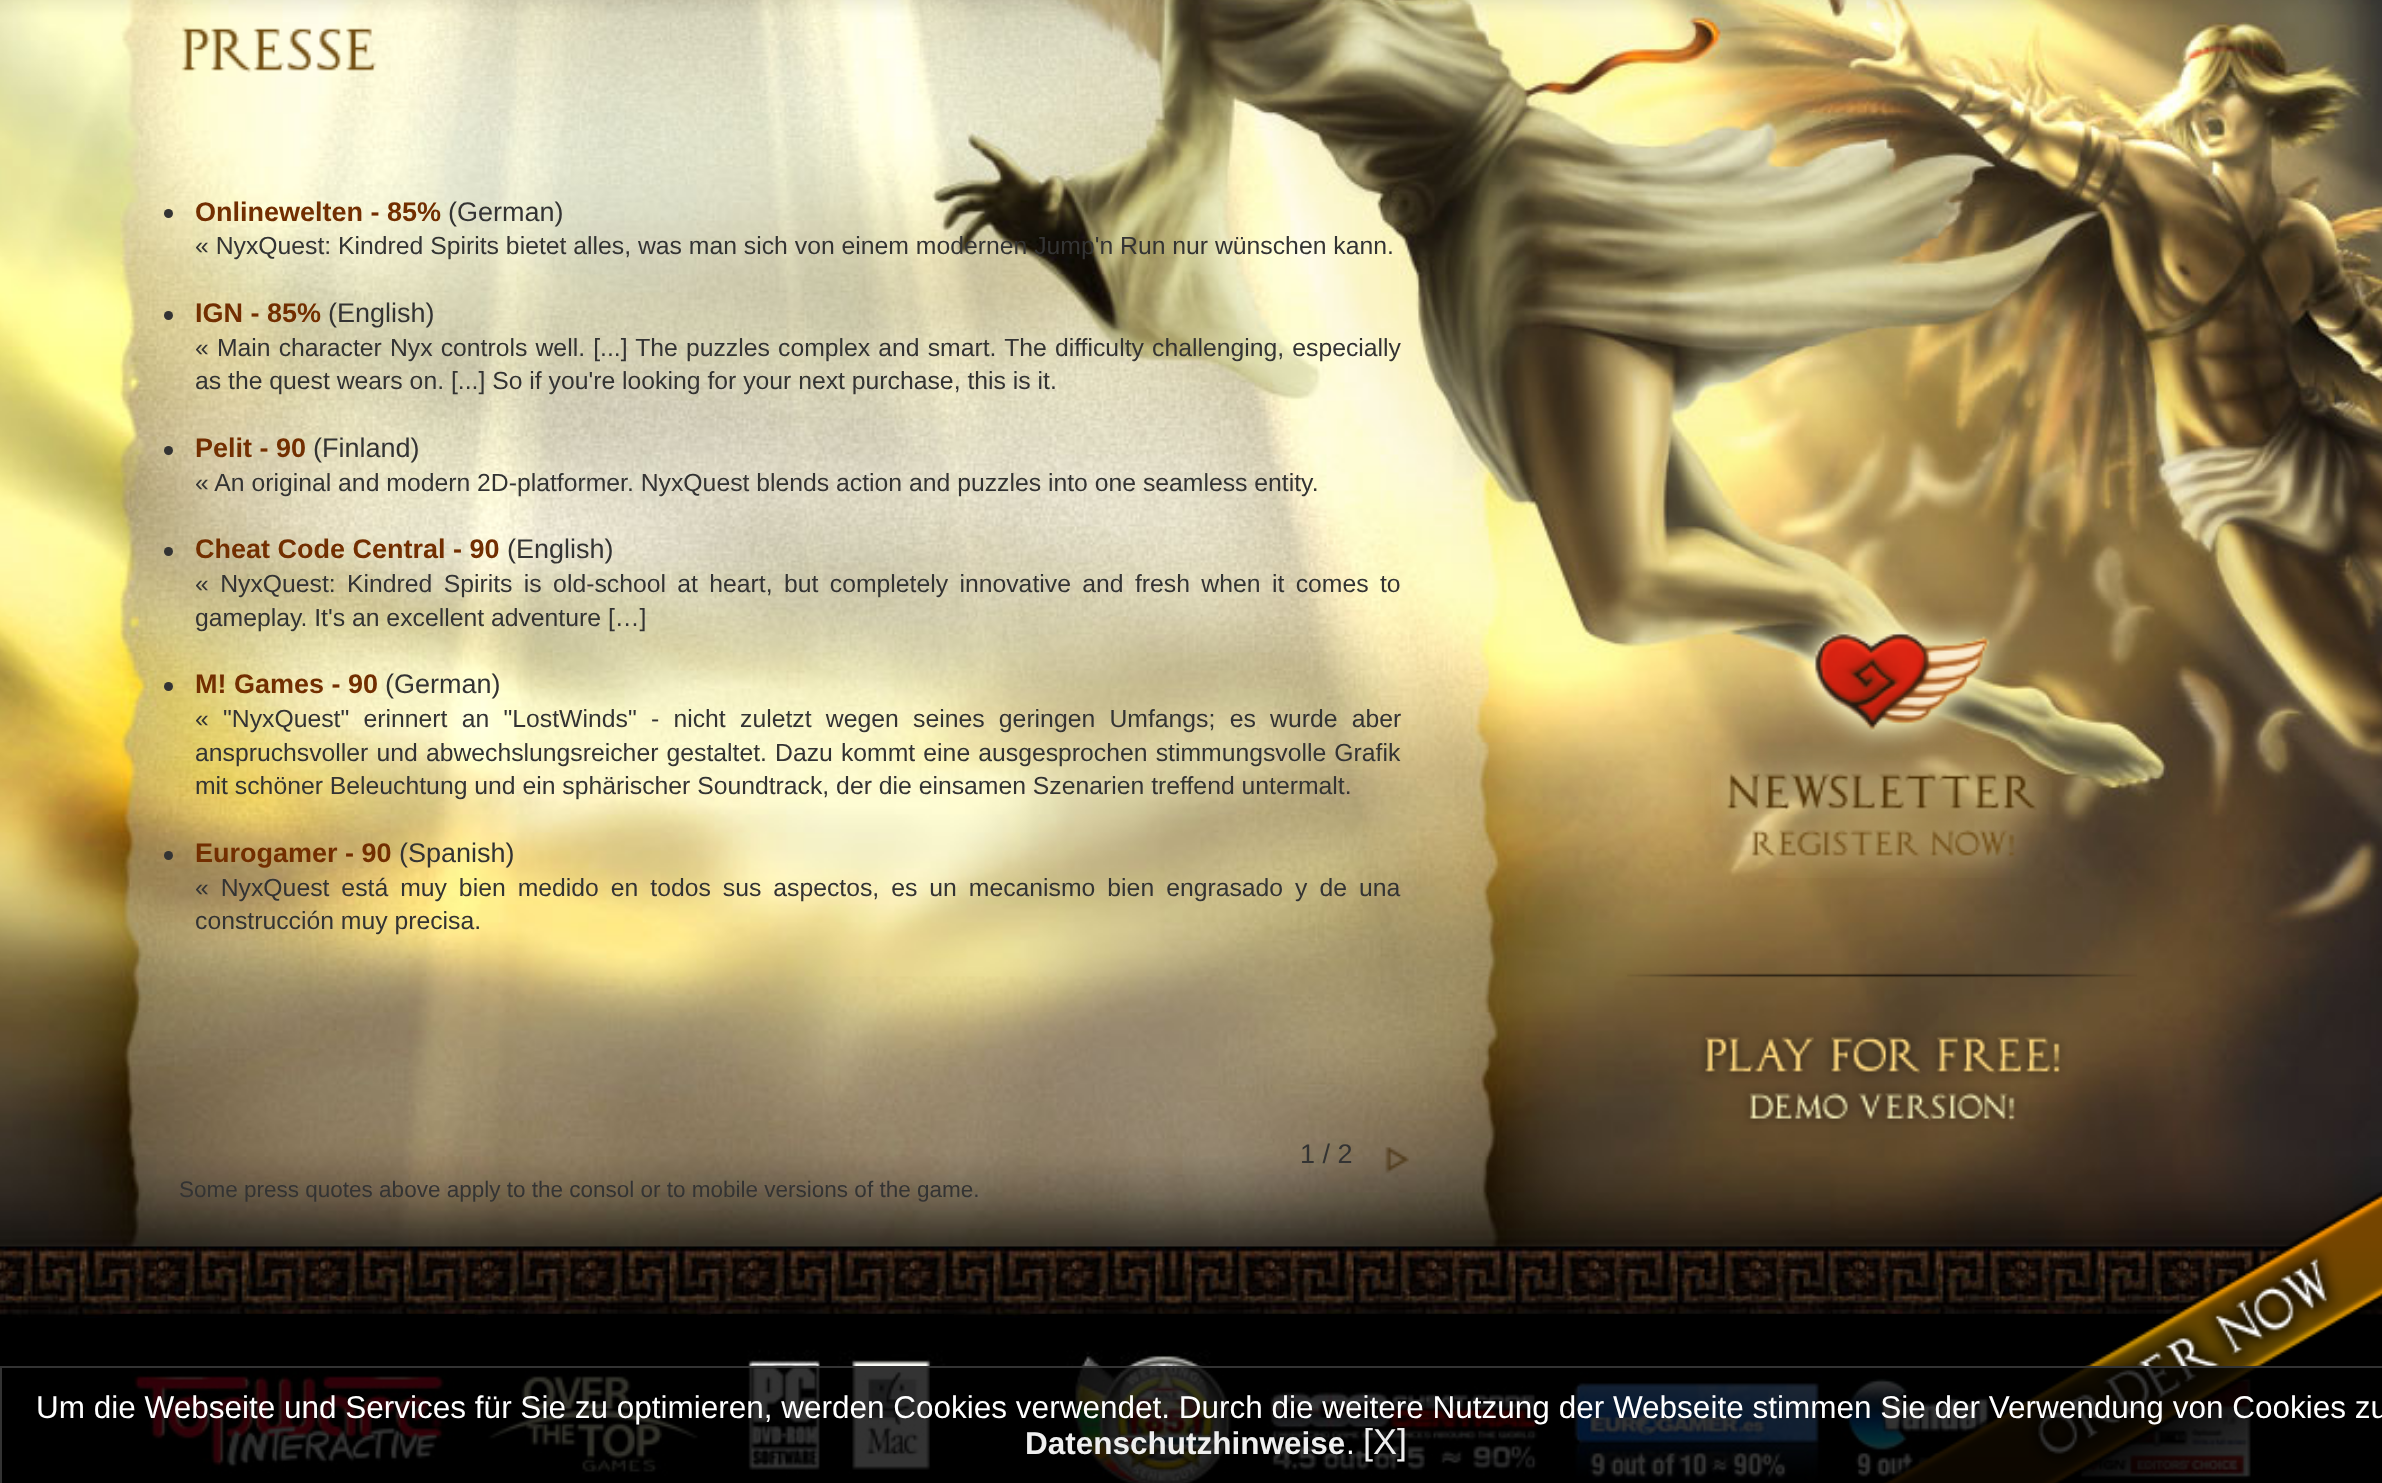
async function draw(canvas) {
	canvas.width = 2382;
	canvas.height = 1483;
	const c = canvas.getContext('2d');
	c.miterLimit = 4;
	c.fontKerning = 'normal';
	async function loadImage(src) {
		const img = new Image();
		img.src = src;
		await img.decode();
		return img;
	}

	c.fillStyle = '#000';
	c.fillRect(0, 0, 2382, 1483);
	c.drawImage(await loadImage('img7.png'), 0, 1246, 2382, 72);
	c.drawImage(await loadImage('img1.png'), 0, 0, 2382, 1247);
	c.drawImage(await loadImage('img2.png'), 181, 26, 196, 47);
	c.fillStyle = '#333';
	c.beginPath();
	c.arc(168.5, 213.5, 4.5, 0, 2 * Math.PI);
	c.fill();
	c.font = 'bold 27px Liberation Sans';
	c.fillStyle = '#722e00';
	c.fillText('Onlinewelten - 85%', 195, 221);
	c.font = '27px Liberation Sans';
	c.fillStyle = '#333';
	c.fillText('(German)', 448, 221);
	c.font = '24.75px Liberation Sans';
	c.fillText('« NyxQuest: Kindred Spirits bietet alles, was man sich von einem modernen Jump\'n Run nur wünschen kann.', 195, 254);
	c.beginPath();
	c.arc(168.5, 315.5, 4.5, 0, 2 * Math.PI);
	c.fill();
	c.font = 'bold 27px Liberation Sans';
	c.fillStyle = '#722e00';
	c.fillText('IGN - 85%', 195, 322);
	c.font = '27px Liberation Sans';
	c.fillStyle = '#333';
	c.fillText('(English)', 328, 322);
	c.wordSpacing = '1.25px';
	c.font = '24.75px Liberation Sans';
	c.fillText('« Main character Nyx controls well. [...] The puzzles complex and smart. The difficulty challenging, especially', 195, 356);
	c.wordSpacing = '0px';
	c.fillText('as the quest wears on. [...] So if you\'re looking for your next purchase, this is it.', 195, 389);
	c.beginPath();
	c.arc(168.5, 450.5, 4.5, 0, 2 * Math.PI);
	c.fill();
	c.font = 'bold 27px Liberation Sans';
	c.fillStyle = '#722e00';
	c.fillText('Pelit - 90', 195, 457);
	c.font = '27px Liberation Sans';
	c.fillStyle = '#333';
	c.fillText('(Finland)', 313, 457);
	c.font = '24.75px Liberation Sans';
	c.fillText('« An original and modern 2D-platformer. NyxQuest blends action and puzzles into one seamless entity.', 195, 491);
	c.beginPath();
	c.arc(168.5, 551.5, 4.5, 0, 2 * Math.PI);
	c.fill();
	c.font = 'bold 27px Liberation Sans';
	c.fillStyle = '#722e00';
	c.fillText('Cheat Code Central - 90', 195, 558);
	c.font = '27px Liberation Sans';
	c.fillStyle = '#333';
	c.fillText('(English)', 507, 558);
	c.wordSpacing = '4.5px';
	c.font = '24.75px Liberation Sans';
	c.fillText('« NyxQuest: Kindred Spirits is old-school at heart, but completely innovative and fresh when it comes to', 195, 592);
	c.wordSpacing = '0px';
	c.fillText('gameplay. It\'s an excellent adventure […]', 195, 626);
	c.beginPath();
	c.arc(168.5, 686.5, 4.5, 0, 2 * Math.PI);
	c.fill();
	c.font = 'bold 27px Liberation Sans';
	c.fillStyle = '#722e00';
	c.fillText('M! Games - 90', 195, 693);
	c.font = '27px Liberation Sans';
	c.fillStyle = '#333';
	c.fillText('(German)', 385, 693);
	c.wordSpacing = '7.4px';
	c.font = '24.75px Liberation Sans';
	c.fillText('« "NyxQuest" erinnert an "LostWinds" - nicht zuletzt wegen seines geringen Umfangs; es wurde aber', 195, 727);
	c.wordSpacing = '1.25px';
	c.fillText('anspruchsvoller und abwechslungsreicher gestaltet. Dazu kommt eine ausgesprochen stimmungsvolle Grafik', 195, 761);
	c.wordSpacing = '0px';
	c.fillText('mit schöner Beleuchtung und ein sphärischer Soundtrack, der die einsamen Szenarien treffend untermalt.', 195, 794);
	c.beginPath();
	c.arc(168.5, 855.5, 4.5, 0, 2 * Math.PI);
	c.fill();
	c.font = 'bold 27px Liberation Sans';
	c.fillStyle = '#722e00';
	c.fillText('Eurogamer - 90', 195, 862);
	c.font = '27px Liberation Sans';
	c.fillStyle = '#333';
	c.fillText('(Spanish)', 399, 862);
	c.wordSpacing = '5.1px';
	c.font = '24.75px Liberation Sans';
	c.fillText('« NyxQuest está muy bien medido en todos sus aspectos, es un mecanismo bien engrasado y de una', 195, 896);
	c.wordSpacing = '0px';
	c.fillText('construcción muy precisa.', 195, 929);
	c.font = '27px Liberation Sans';
	c.fillText('1 / 2', 1300, 1163);
	c.drawImage(await loadImage('img3.png'), 1385, 1147, 24, 26);
	c.font = '22.5px Liberation Sans';
	c.fillText('Some press quotes above apply to the consol or to mobile versions of the game.', 179, 1197);
	c.drawImage(await loadImage('img4.png'), 1711, 607, 341, 271);
	c.drawImage(await loadImage('img5.png'), 1627, 973, 510, 152);
	c.drawImage(await loadImage('img11.png'), 1030, 1314, 1242, 169);
	c.drawImage(await loadImage('img6.png'), 1883, 1190, 499, 293);
	c.drawImage(await loadImage('img8.png'), 112, 1314, 363, 161);
	c.drawImage(await loadImage('img9.png'), 488, 1314, 210, 162);
	c.drawImage(await loadImage('img10.png'), 711, 1314, 243, 162);
	c.fillStyle = '#000000cc';
	c.fillRect(130, 1368, 2130, 115);
	c.strokeStyle = '#333';
	c.lineWidth = 2;
	c.strokeRect(1, 1367, 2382, 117);
	c.font = '31.5px Liberation Sans';
	c.fillStyle = '#fff';
	c.fillText('Um die Webseite und Services für Sie zu optimieren, werden Cookies verwendet. Durch die weitere Nutzung der Webseite stimmen Sie der Verwendung von Cookies zu', 36, 1418);
	c.font = 'bold 31.5px Liberation Sans';
	c.fillStyle = '#eee';
	c.fillText('Datenschutzhinweise', 1025, 1454);
	c.font = '31.5px Liberation Sans';
	c.fillStyle = '#fff';
	c.fillText('.', 1346, 1454);
	c.font = '36px Liberation Sans';
	c.fillStyle = '#eee';
	c.fillText('[X]', 1363, 1454);
}

draw(document.querySelector('canvas'));
